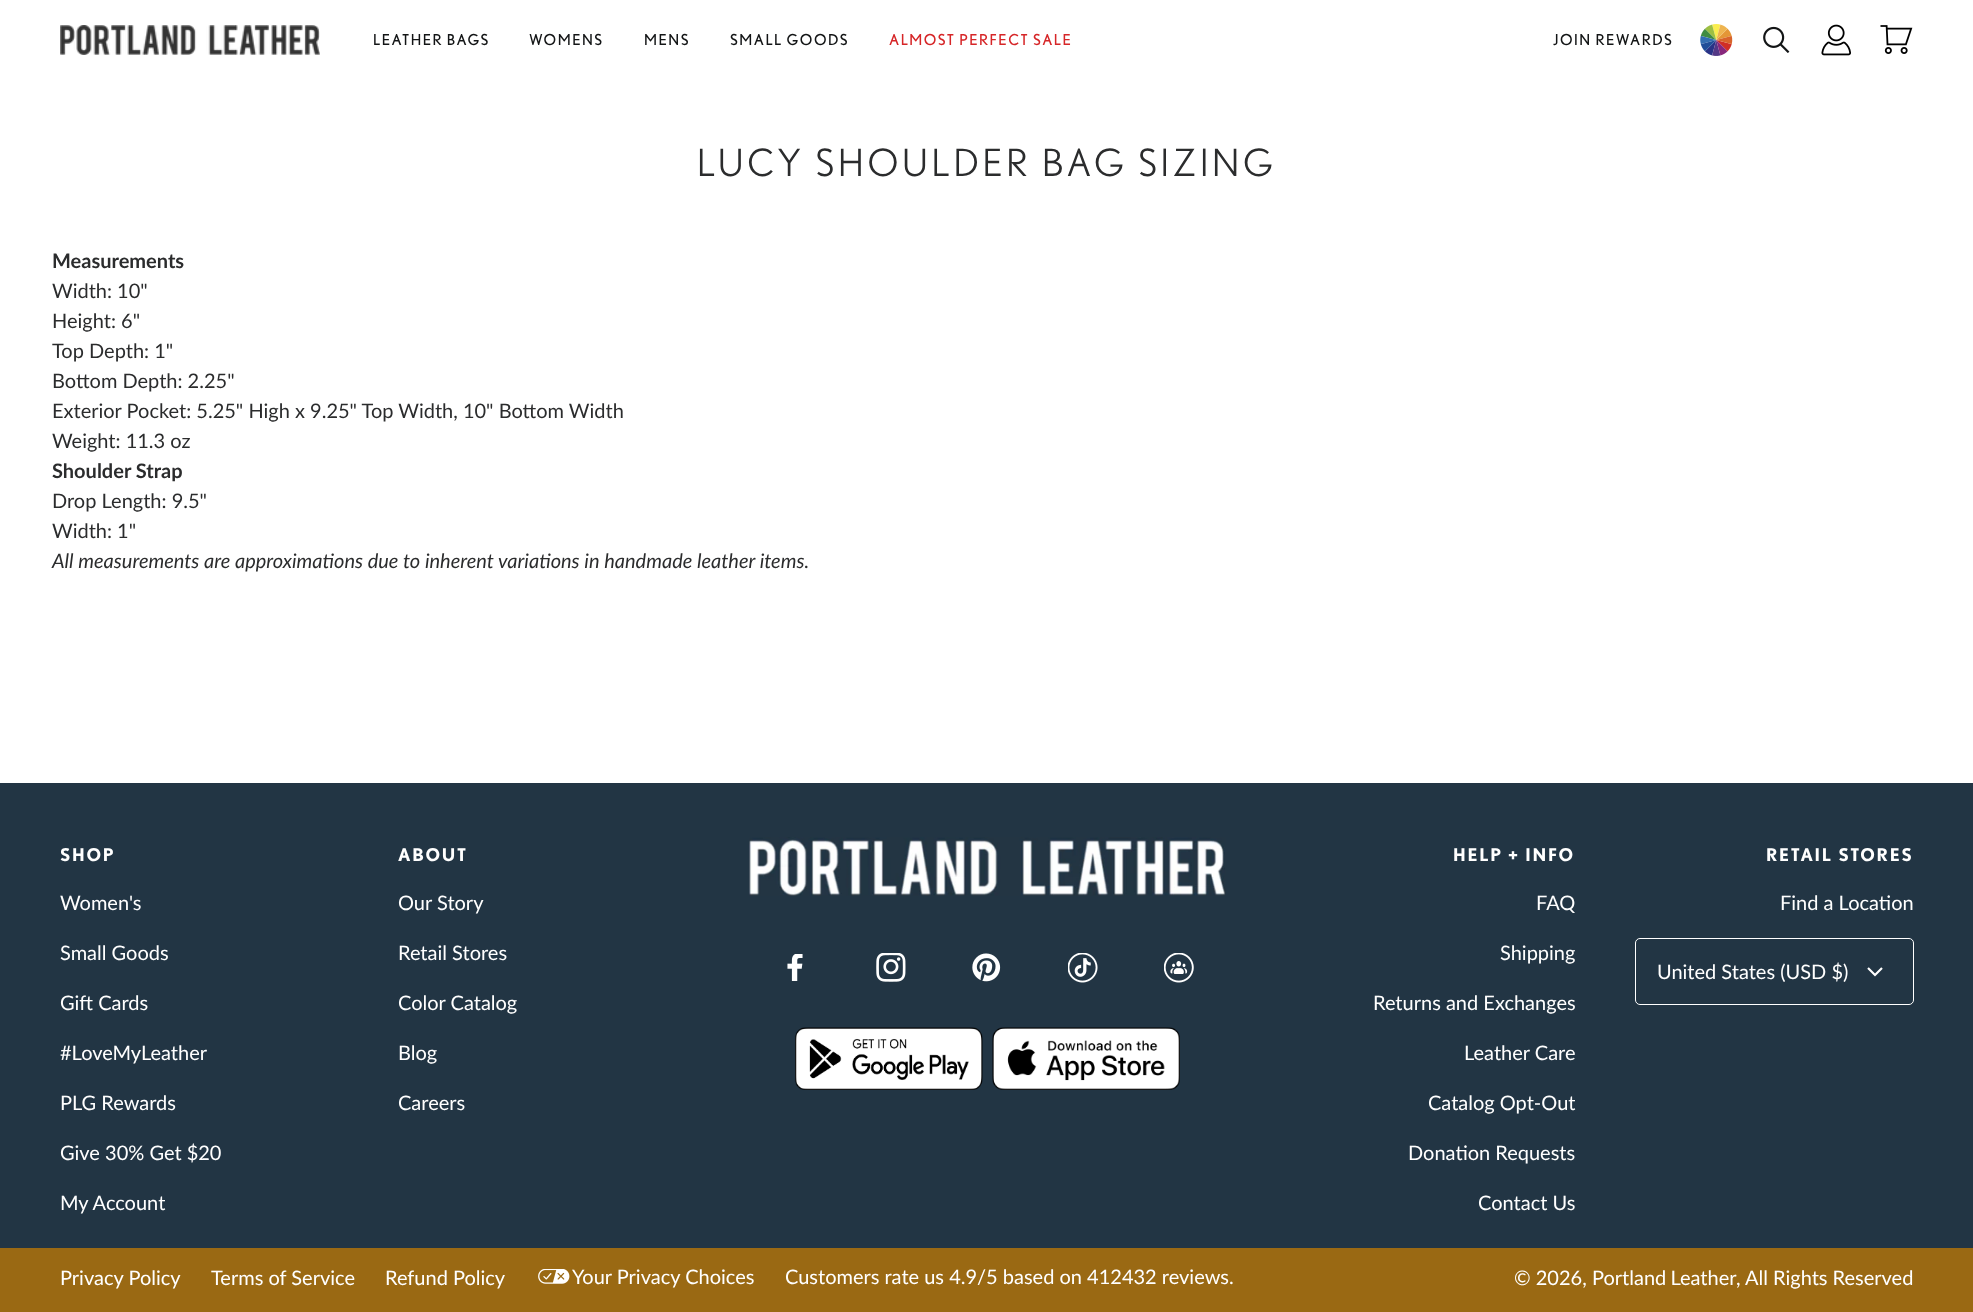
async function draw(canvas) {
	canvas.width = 1973;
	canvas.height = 1312;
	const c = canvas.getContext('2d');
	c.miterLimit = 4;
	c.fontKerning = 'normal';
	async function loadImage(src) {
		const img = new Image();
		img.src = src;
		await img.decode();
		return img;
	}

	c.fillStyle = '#fff';
	c.fillRect(0, 0, 1973, 1312);
	c.drawImage(await loadImage('img1.png'), 60, 25, 260, 30);
	c.letterSpacing = '1.5px';
	c.font = '15px "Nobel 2"';
	c.fillStyle = '#131516';
	for (const [text, x, y] of [
		['LEATHER BAGS', 373, 45],
		['WOMENS', 529, 45],
		['MENS', 644, 45],
		['SMALL GOODS', 730, 45],
	]) {
		c.fillText(text, x, y);
	}
	c.fillStyle = '#d62628';
	c.fillText('ALMOST PERFECT SALE', 889, 45);
	c.fillStyle = '#131516';
	c.fillText('JOIN REWARDS', 1553, 45);
	c.drawImage(await loadImage('img2.png'), 1700, 24, 33, 32);
	c.drawImage(await loadImage('img3.png'), 1763, 26, 27, 27);
	c.drawImage(await loadImage('img4.png'), 1821, 24, 30, 32);
	c.drawImage(await loadImage('img5.png'), 1880, 25, 33, 29);
	c.letterSpacing = '3.75px';
	c.font = '37.5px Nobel';
	c.fillStyle = '#2b2c2d';
	c.fillText('LUCY SHOULDER BAG SIZING', 697, 176);
	c.letterSpacing = '0px';
	c.font = 'bold 20px Lato';
	c.fillText('Measurements', 52, 268);
	c.font = '20px Lato';
	for (const [text, x, y] of [
		['Width: 10"', 52, 298],
		['Height: 6"', 52, 328],
		['Top Depth: 1"', 52, 358],
		['Bottom Depth: 2.25"', 52, 388],
		['Exterior Pocket: 5.25" High x 9.25" Top Width, 10" Bottom Width', 52, 418],
		['Weight: 11.3 oz', 52, 448],
	]) {
		c.fillText(text, x, y);
	}
	c.font = 'bold 20px Lato';
	c.fillText('Shoulder Strap', 52, 478);
	c.font = '20px Lato';
	c.fillText('Drop Length: 9.5"', 52, 508);
	c.fillText('Width: 1"', 52, 538);
	c.font = 'italic 20px Lato';
	c.fillText('All measurements are approximations due to inherent variations in handmade leather items.', 52, 568);
	c.fillStyle = '#223544';
	c.fillRect(0, 783, 1973, 465);
	c.letterSpacing = '1.75px';
	c.font = 'bold 17.5px Nobel';
	c.fillStyle = '#fff';
	c.fillText('SHOP', 60, 861);
	c.letterSpacing = '0px';
	c.font = '20px Lato';
	for (const [text, x, y] of [
		['Women\'s', 60, 910],
		['Small Goods', 60, 960],
		['Gift Cards', 60, 1010],
		['#LoveMyLeather', 60, 1060],
		['PLG Rewards', 60, 1110],
		['Give 30% Get $20', 60, 1160],
		['My Account', 60, 1210],
	]) {
		c.fillText(text, x, y);
	}
	c.letterSpacing = '1.75px';
	c.font = 'bold 17.5px Nobel';
	c.fillText('ABOUT', 398, 861);
	c.letterSpacing = '0px';
	c.font = '20px Lato';
	for (const [text, x, y] of [
		['Our Story', 398, 910],
		['Retail Stores', 398, 960],
		['Color Catalog', 398, 1010],
		['Blog', 398, 1060],
		['Careers', 398, 1110],
	]) {
		c.fillText(text, x, y);
	}
	c.drawImage(await loadImage('img6.png'), 749, 837, 477, 59);
	c.drawImage(await loadImage('img7.png'), 787, 954, 16, 27);
	c.drawImage(await loadImage('img8.png'), 876, 953, 30, 29);
	c.drawImage(await loadImage('img9.png'), 972, 953, 29, 29);
	c.drawImage(await loadImage('img10.png'), 1068, 953, 30, 30);
	c.drawImage(await loadImage('img11.png'), 1164, 953, 30, 30);
	c.drawImage(await loadImage('img12.png'), 795, 1027, 188, 63);
	c.drawImage(await loadImage('img13.png'), 992, 1027, 188, 63);
	c.letterSpacing = '1.75px';
	c.font = 'bold 17.5px Nobel';
	c.fillText('HELP + INFO', 1453, 861);
	c.letterSpacing = '0px';
	c.font = '20px Lato';
	for (const [text, x, y] of [
		['FAQ', 1536, 910],
		['Shipping', 1500, 960],
		['Returns and Exchanges', 1373, 1010],
		['Leather Care', 1464, 1060],
		['Catalog Opt-Out', 1428, 1110],
		['Donation Requests', 1408, 1160],
		['Contact Us', 1478, 1210],
	]) {
		c.fillText(text, x, y);
	}
	c.letterSpacing = '1.75px';
	c.font = 'bold 17.5px Nobel';
	c.fillText('RETAIL STORES', 1766, 861);
	c.letterSpacing = '0px';
	c.font = '20px Lato';
	c.fillText('Find a Location', 1780, 910);
	c.beginPath();
	c.roundRect(1635.5, 938.5, 278, 66, 4.5);
	c.strokeStyle = '#fff';
	c.stroke();
	c.fillText('United States (USD $)', 1657, 979);
	c.beginPath();
	c.moveTo(1882, 968);
	c.lineTo(1875, 975);
	c.lineTo(1868, 968);
	c.lineWidth = 2.2;
	c.stroke();
	c.fillStyle = '#9a6913';
	c.fillRect(0, 1248, 1973, 64);
	c.fillStyle = '#fff';
	for (const [text, x, y] of [
		['Privacy Policy', 60, 1285],
		['Terms of Service', 211, 1285],
		['Refund Policy', 385, 1285],
	]) {
		c.fillText(text, x, y);
	}
	c.drawImage(await loadImage('img14.png'), 538, 1269, 32, 15);
	for (const [text, x, y] of [
		['Your Privacy Choices', 572, 1284],
		['Customers rate us 4.9/5 based on 412432 reviews.', 785, 1284],
		['© 2026,', 1514, 1285],
	]) {
		c.fillText(text, x, y);
	}
	c.wordSpacing = '-1px';
	c.fillText('Portland Leather', 1592, 1285);
	c.wordSpacing = '0px';
	c.fillText(', All Rights Reserved', 1736, 1285);
}

draw(document.querySelector('canvas'));
